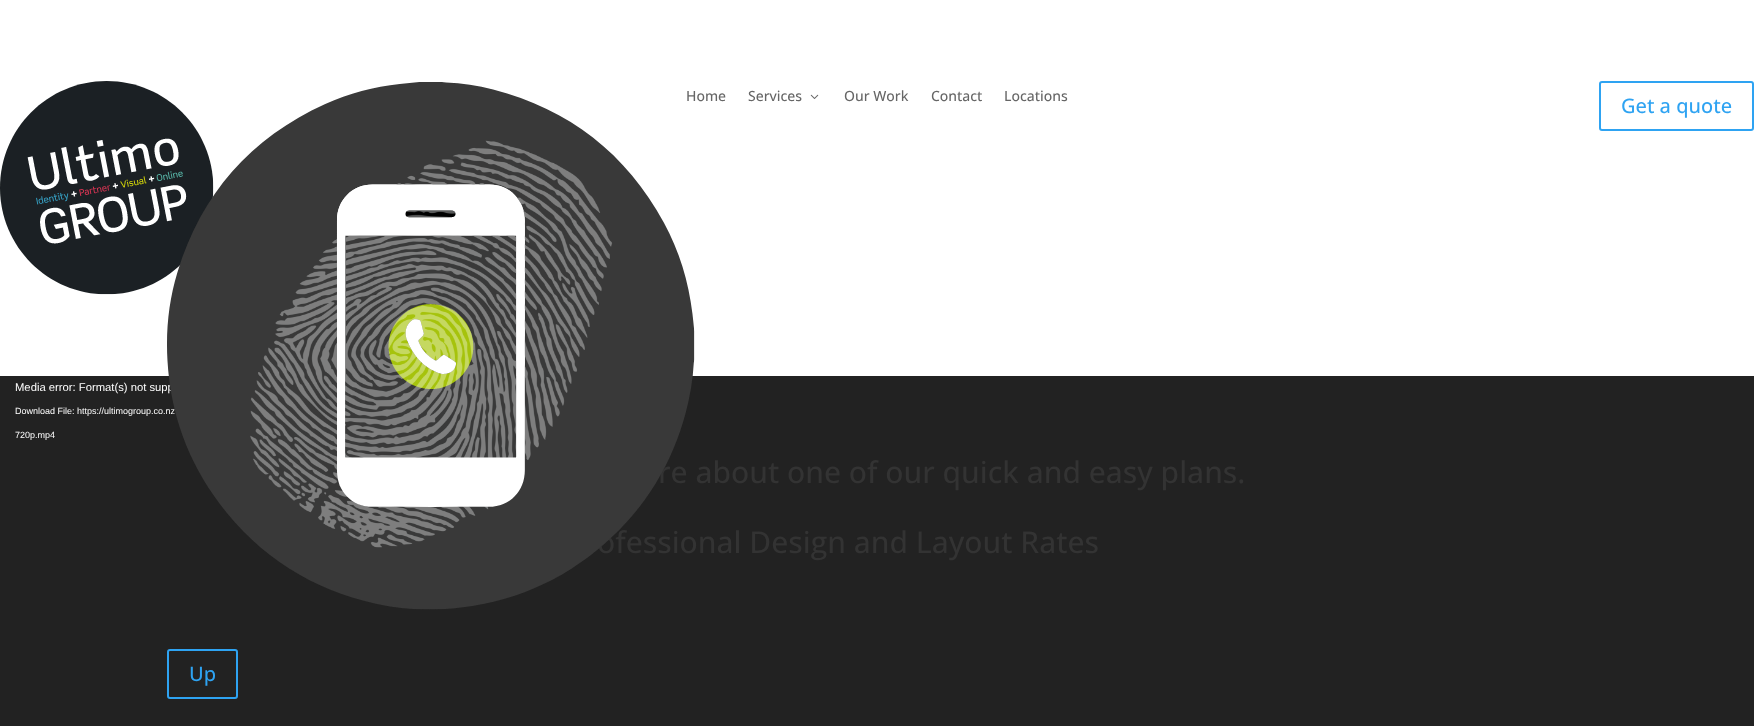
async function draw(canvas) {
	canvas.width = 1754;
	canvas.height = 726;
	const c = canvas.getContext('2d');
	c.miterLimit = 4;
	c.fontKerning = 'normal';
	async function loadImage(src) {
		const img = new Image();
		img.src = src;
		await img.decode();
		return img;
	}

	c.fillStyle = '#fff';
	c.fillRect(0, 0, 1754, 726);
	c.drawImage(await loadImage('img1.png'), 0, 81, 214, 214);
	c.font = '500 14px Open Sans';
	c.fillStyle = '#666';
	c.fillText('Home', 686, 101);
	c.fillText('Services', 748, 101);
	c.drawImage(await loadImage('img2.png'), 810, 94, 9, 5);
	for (const [text, x, y] of [
		['Our Work', 844, 101],
		['Contact', 931, 101],
		['Locations', 1004, 101],
	]) {
		c.fillText(text, x, y);
	}
	c.beginPath();
	c.roundRect(1600, 82, 153, 48, 2);
	c.strokeStyle = '#2ea3f2';
	c.lineWidth = 2;
	c.stroke();
	c.font = '500 20px Open Sans';
	c.fillStyle = '#2ea3f2';
	c.fillText('Get a quote', 1621, 113);
	c.fillStyle = '#222';
	c.fillRect(0, 376, 1754, 350);
	c.font = '11.25px Liberation Sans';
	c.fillStyle = '#fff';
	c.fillText('Media error: Format(s) not supp', 15, 391);
	c.font = '9px Liberation Sans';
	c.fillText('Download File: https://ultimogroup.co.nz', 15, 414);
	c.fillText('720p.mp4', 15, 438);
	c.font = '500 30px Open Sans';
	c.fillStyle = '#333';
	c.fillText('re about one of our quick and easy plans.', 658, 483);
	c.fillText('ofessional Design and Layout Rates', 597, 553);
	c.drawImage(await loadImage('img3.png'), 167, 82, 528, 528);
	c.beginPath();
	c.roundRect(168, 650, 69, 48, 2);
	c.stroke();
	c.font = '500 20px Open Sans';
	c.fillStyle = '#2ea3f2';
	c.fillText('Up', 189, 681);
}

draw(document.querySelector('canvas'));
